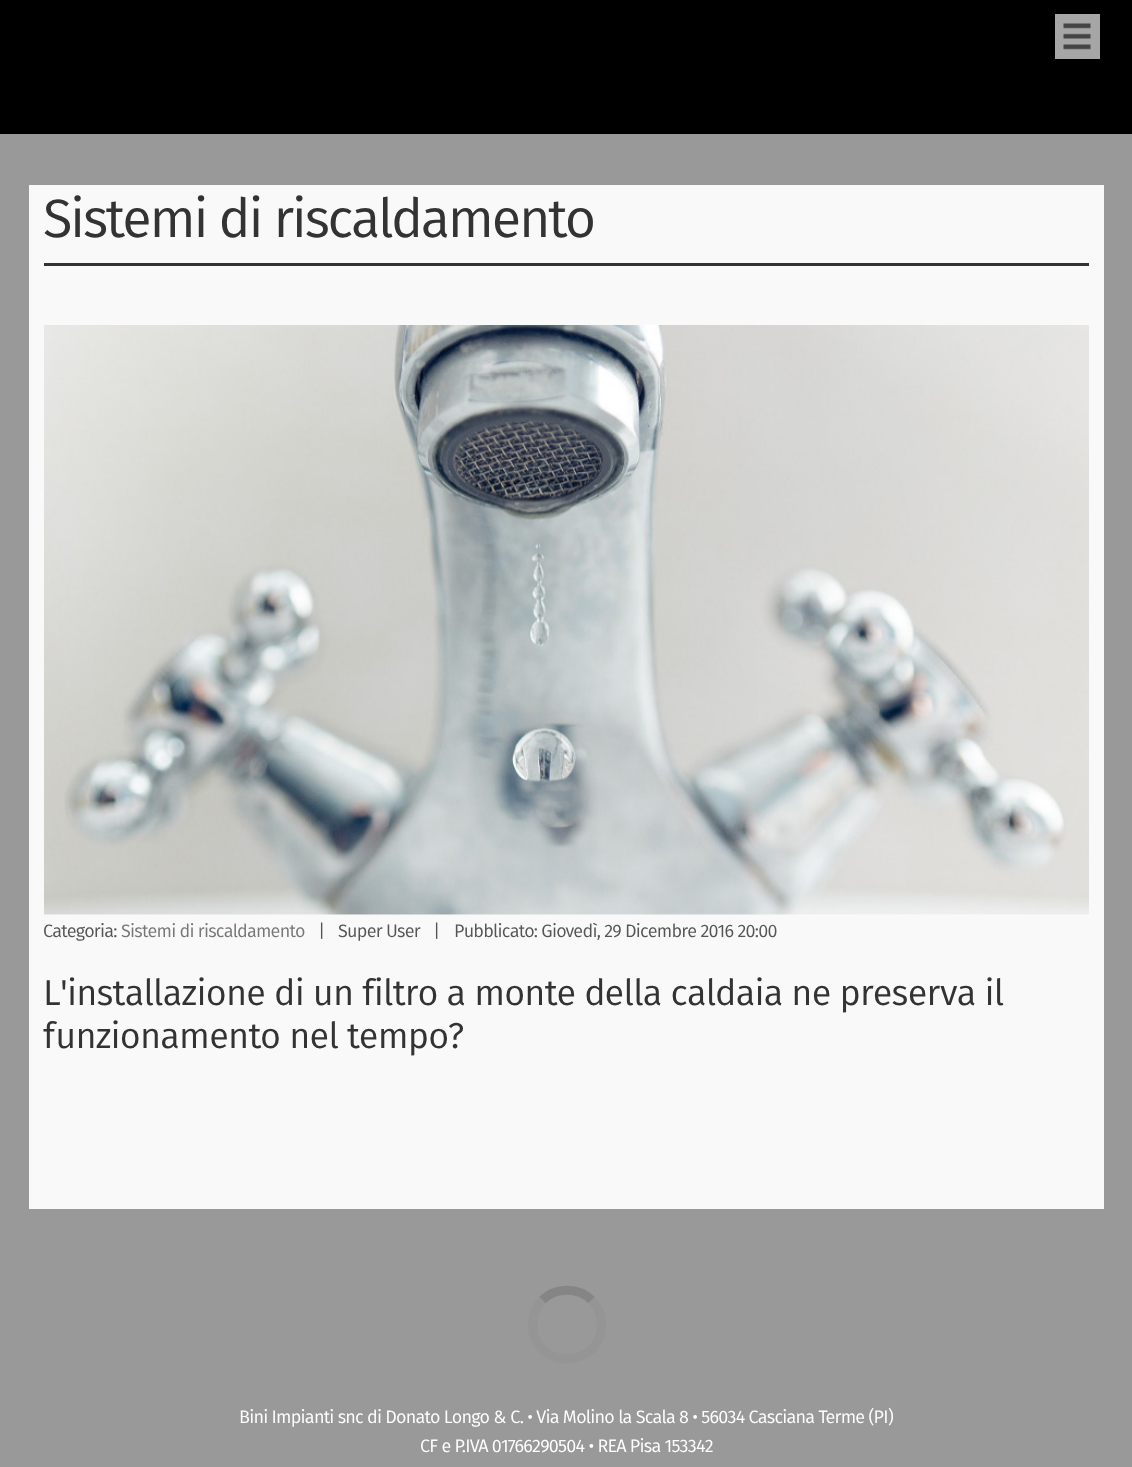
async function draw(canvas) {
	canvas.width = 1132;
	canvas.height = 1467;
	const c = canvas.getContext('2d');
	c.miterLimit = 4;
	c.fontKerning = 'normal';
	async function loadImage(src) {
		const img = new Image();
		img.src = src;
		await img.decode();
		return img;
	}

	c.fillStyle = '#999';
	c.fillRect(0, 0, 1132, 1467);
	c.fillStyle = '#000';
	c.fillRect(0, 0, 1132, 134);
	c.fillStyle = '#a6a6a6';
	c.fillRect(1055, 14, 45, 45);
	c.drawImage(await loadImage('img1.png'), 1063, 23, 28, 27);
	c.fillStyle = '#f9f9f9';
	c.fillRect(29, 185, 1075, 1024);
	c.fillStyle = '#333';
	c.fillRect(44, 263, 1045, 3);
	c.letterSpacing = '-2.25px';
	c.font = '54px Fira Sans';
	c.fillText('Sistemi di riscaldamento', 43, 237);
	c.drawImage(await loadImage('img2.png'), 44, 325, 1045, 590);
	c.letterSpacing = '-0.75px';
	c.font = '18px Fira Sans';
	c.fillStyle = '#555';
	c.fillText('Categoria:', 43, 937);
	c.fillStyle = '#777';
	c.fillText('Sistemi di riscaldamento', 121, 937);
	c.fillStyle = '#555';
	for (const [text, x, y] of [
		['|', 318, 937],
		['Super User', 338, 937],
		['|', 433, 937],
		['Pubblicato: Giovedì, 29 Dicembre 2016 20:00', 454, 937],
	]) {
		c.fillText(text, x, y);
	}
	c.font = '36px Fira Sans';
	c.fillStyle = '#333';
	c.fillText('L\'installazione di un filtro a monte della caldaia ne preserva il', 43, 1005);
	c.fillText('funzionamento nel tempo?', 43, 1048);
	c.beginPath();
	c.moveTo(542.5, 1300);
	c.bezierCurveTo(556, 1287, 578, 1287, 591.5, 1300);
	c.strokeStyle = '#858585';
	c.lineWidth = 9;
	c.stroke();
	c.beginPath();
	c.moveTo(591.5, 1300);
	c.bezierCurveTo(598, 1306.5, 601.5, 1315.5, 601.5, 1324.5);
	c.bezierCurveTo(601.5, 1366, 541, 1371.5, 533, 1331.5);
	c.bezierCurveTo(531, 1320, 534.5, 1308, 542.5, 1300);
	c.strokeStyle = '#80808026';
	c.stroke();
	c.font = '18px Fira Sans';
	c.fillStyle = '#fff';
	c.fillText('Bini Impianti snc di Donato Longo & C. • Via Molino la Scala 8 • 56034 Casciana Terme (PI)', 239, 1423);
	c.fillText('CF e P.IVA 01766290504 • REA Pisa 153342', 420, 1452);
}

draw(document.querySelector('canvas'));
